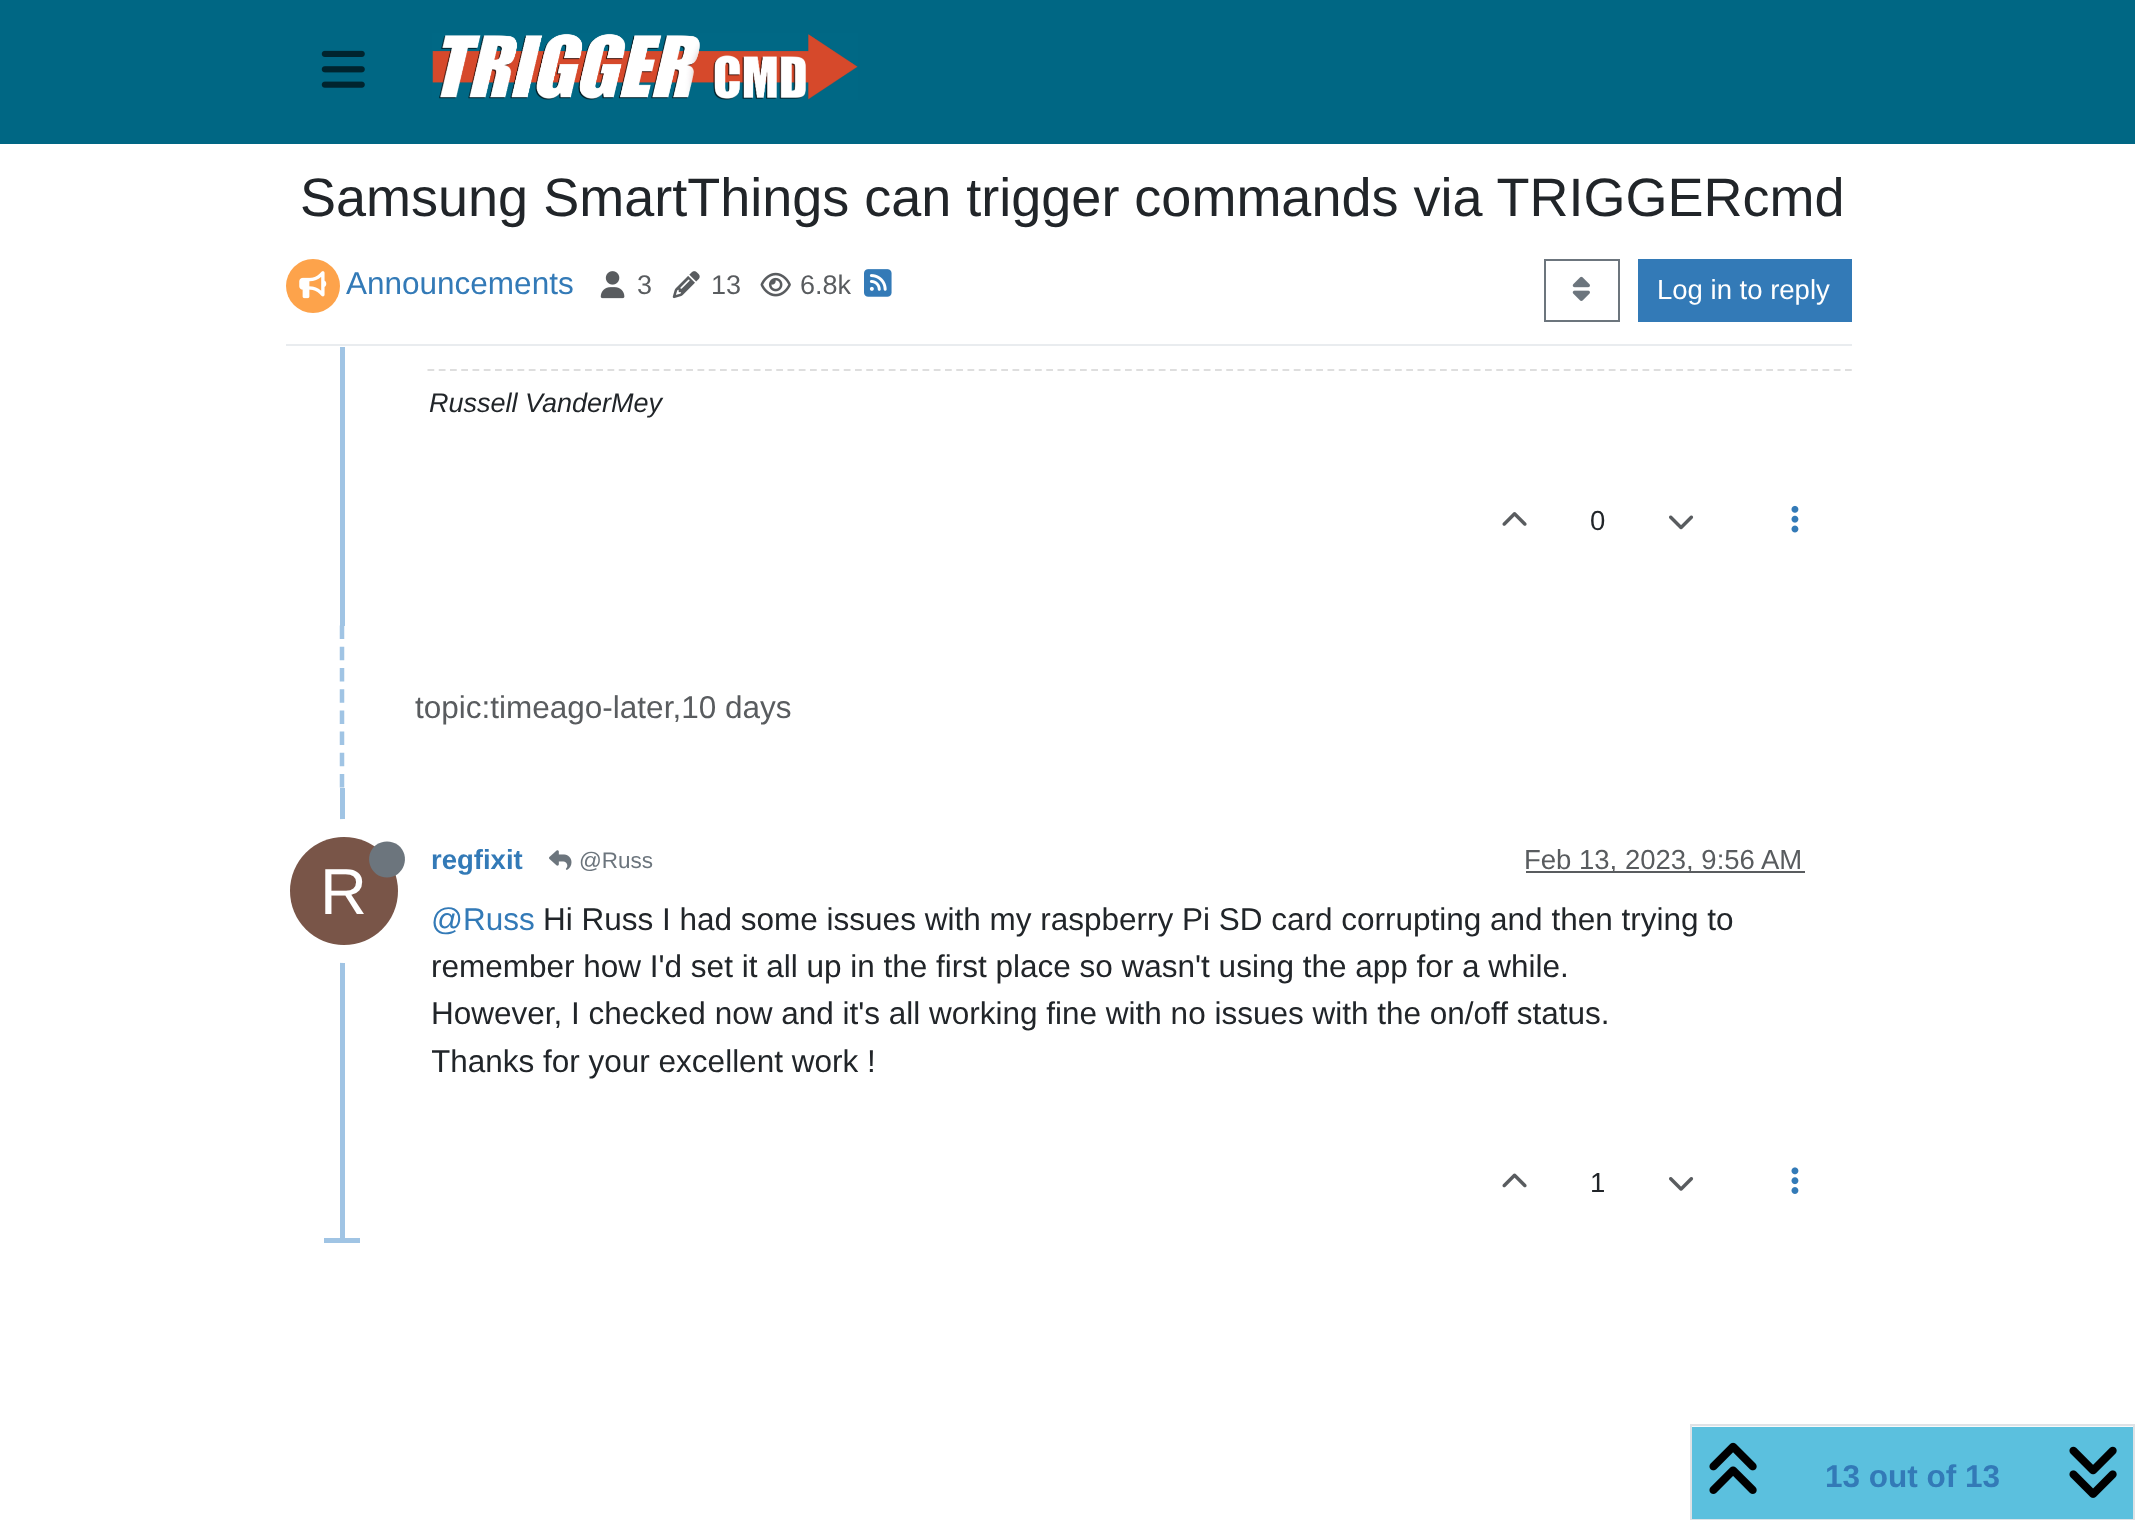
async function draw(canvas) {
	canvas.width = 2135;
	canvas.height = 1520;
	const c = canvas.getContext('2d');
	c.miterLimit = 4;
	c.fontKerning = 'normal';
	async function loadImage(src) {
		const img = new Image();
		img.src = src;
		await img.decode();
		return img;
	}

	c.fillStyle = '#fff';
	c.fillRect(0, 0, 2135, 1520);
	c.fillStyle = '#006784';
	c.fillRect(0, 0, 2135, 144);
	c.drawImage(await loadImage('img1.png'), 321, 50, 44, 38);
	c.drawImage(await loadImage('img2.png'), 432, 33, 426, 67);
	c.font = '54px Liberation Sans';
	c.fillStyle = '#212529';
	c.fillText('Samsung SmartThings can trigger commands via TRIGGERcmd', 300, 216);
	c.fillStyle = '#e9ecef';
	c.fillRect(286, 344, 1566, 2);
	c.fillStyle = '#fda34b';
	c.beginPath();
	c.arc(313, 286, 27, 0, 2 * Math.PI);
	c.fill();
	c.drawImage(await loadImage('img3.png'), 299, 271, 28, 28);
	c.font = '31.5px Liberation Sans';
	c.fillStyle = '#337ab7';
	c.fillText('Announcements', 346, 294);
	c.drawImage(await loadImage('img4.png'), 600, 271, 25, 28);
	c.font = '27px Liberation Sans';
	c.fillStyle = '#595c5f';
	c.fillText('3', 637, 294);
	c.drawImage(await loadImage('img5.png'), 672, 271, 28, 28);
	c.fillText('13', 711, 294);
	c.drawImage(await loadImage('img6.png'), 760, 272, 31, 25);
	c.fillText('6.8k', 800, 294);
	c.drawImage(await loadImage('img7.png'), 864, 269, 28, 28);
	c.strokeStyle = '#6c757d';
	c.lineWidth = 2;
	c.strokeRect(1545, 260, 74, 61);
	c.drawImage(await loadImage('img8.png'), 1572, 276, 18, 25);
	c.fillStyle = '#337ab7';
	c.fillRect(1638, 259, 214, 63);
	c.font = '27.5px Liberation Sans';
	c.fillStyle = '#fff';
	c.fillText('Log in to reply', 1657, 299);
	c.fillStyle = '#a0c4e4';
	c.fillRect(340, 347, 5, 279);
	c.beginPath();
	c.moveTo(427.5, 370);
	c.lineTo(1852, 370);
	c.strokeStyle = '#dedede';
	c.lineWidth = 2.2;
	c.setLineDash([6.75, 4.5]);
	c.stroke();
	c.font = 'italic 27px Liberation Sans';
	c.fillStyle = '#212529';
	c.fillText('Russell VanderMey', 429, 412);
	c.drawImage(await loadImage('img9.png'), 1502, 512, 25, 14);
	c.font = '27.5px Liberation Sans';
	c.fillText('0', 1590, 530);
	c.drawImage(await loadImage('img10.png'), 1669, 515, 25, 15);
	c.drawImage(await loadImage('img11.png'), 1791, 505, 8, 28);
	c.beginPath();
	c.moveTo(342, 625.5);
	c.lineTo(342, 787.5);
	c.strokeStyle = '#a0c4e4';
	c.lineWidth = 4.5;
	c.setLineDash([13.5, 7.72]);
	c.stroke();
	c.font = '31.5px Liberation Sans';
	c.fillStyle = '#595c5f';
	c.fillText('topic:timeago-later,10 days', 415, 718);
	c.fillStyle = '#a0c4e4';
	c.fillRect(340, 788, 5, 454);
	c.font = 'bold 27.5px Liberation Sans';
	c.fillStyle = '#337ab7';
	c.fillText('regfixit', 431, 869);
	c.drawImage(await loadImage('img12.png'), 549, 850, 23, 20);
	c.font = '22.5px Liberation Sans';
	c.fillStyle = '#6c757d';
	c.fillText('@Russ', 579, 868);
	c.fillStyle = '#595c5f';
	c.fillRect(1526, 871, 279, 2);
	c.font = '27.5px Liberation Sans';
	c.fillText('Feb 13, 2023, 9:56 AM', 1524, 869);
	c.beginPath();
	c.arc(344, 891, 63, 0, 2 * Math.PI);
	c.strokeStyle = '#fff';
	c.lineWidth = 18;
	c.setLineDash([]);
	c.stroke();
	c.fillStyle = '#795548';
	c.beginPath();
	c.arc(344, 891, 54, 0, 2 * Math.PI);
	c.fill();
	c.fillStyle = '#6c757d';
	c.beginPath();
	c.moveTo(387, 877.5);
	c.bezierCurveTo(404, 877.5, 411.5, 855.5, 398, 845);
	c.bezierCurveTo(395, 843, 391, 841.5, 387, 841.5);
	c.bezierCurveTo(383, 841.5, 379, 843, 376, 845);
	c.bezierCurveTo(362.5, 855.5, 370, 877.5, 387, 877.5);
	c.closePath();
	c.fill();
	c.font = '65px Liberation Sans';
	c.fillStyle = '#fff';
	c.fillText('R', 320, 914);
	c.font = '31.5px Liberation Sans';
	c.fillStyle = '#337ab7';
	c.fillText('@Russ', 431, 930);
	c.fillStyle = '#212529';
	for (const [text, x, y] of [
		['Hi Russ I had some issues with my raspberry Pi SD card corrupting and then trying to', 543, 930],
		['remember how I\'d set it all up in the first place so wasn\'t using the app for a while.', 431, 977],
		['However, I checked now and it\'s all working fine with no issues with the on/off status.', 431, 1024],
	]) {
		c.fillText(text, x, y);
	}
	c.save();
	c.beginPath();
	c.rect(432, 896, 1420, 227);
	c.clip();
	c.fillText('Thanks for your excellent work !', 431, 1072);
	c.restore();
	c.drawImage(await loadImage('img13.png'), 1502, 1173, 25, 15);
	c.font = '27.5px Liberation Sans';
	c.fillText('1', 1590, 1192);
	c.drawImage(await loadImage('img14.png'), 1669, 1177, 25, 14);
	c.drawImage(await loadImage('img15.png'), 1791, 1167, 8, 27);
	c.fillStyle = '#a0c4e4';
	c.fillRect(324, 1238, 36, 5);
	c.fillStyle = '#f8f9fa';
	c.fillRect(1692, 1426, 441, 1);
	c.strokeStyle = '#dee2e6';
	c.lineWidth = 2;
	c.strokeRect(1691, 1425, 443, 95);
	c.fillStyle = '#5bc0de';
	c.fillRect(1692, 1427, 441, 92);
	c.drawImage(await loadImage('img16.png'), 1709, 1442, 48, 52);
	c.font = 'bold 31.5px Liberation Sans';
	c.fillStyle = '#337ab7';
	c.fillText('13 out of 13', 1825, 1487);
	c.drawImage(await loadImage('img17.png'), 2069, 1446, 48, 52);
}

draw(document.querySelector('canvas'));
